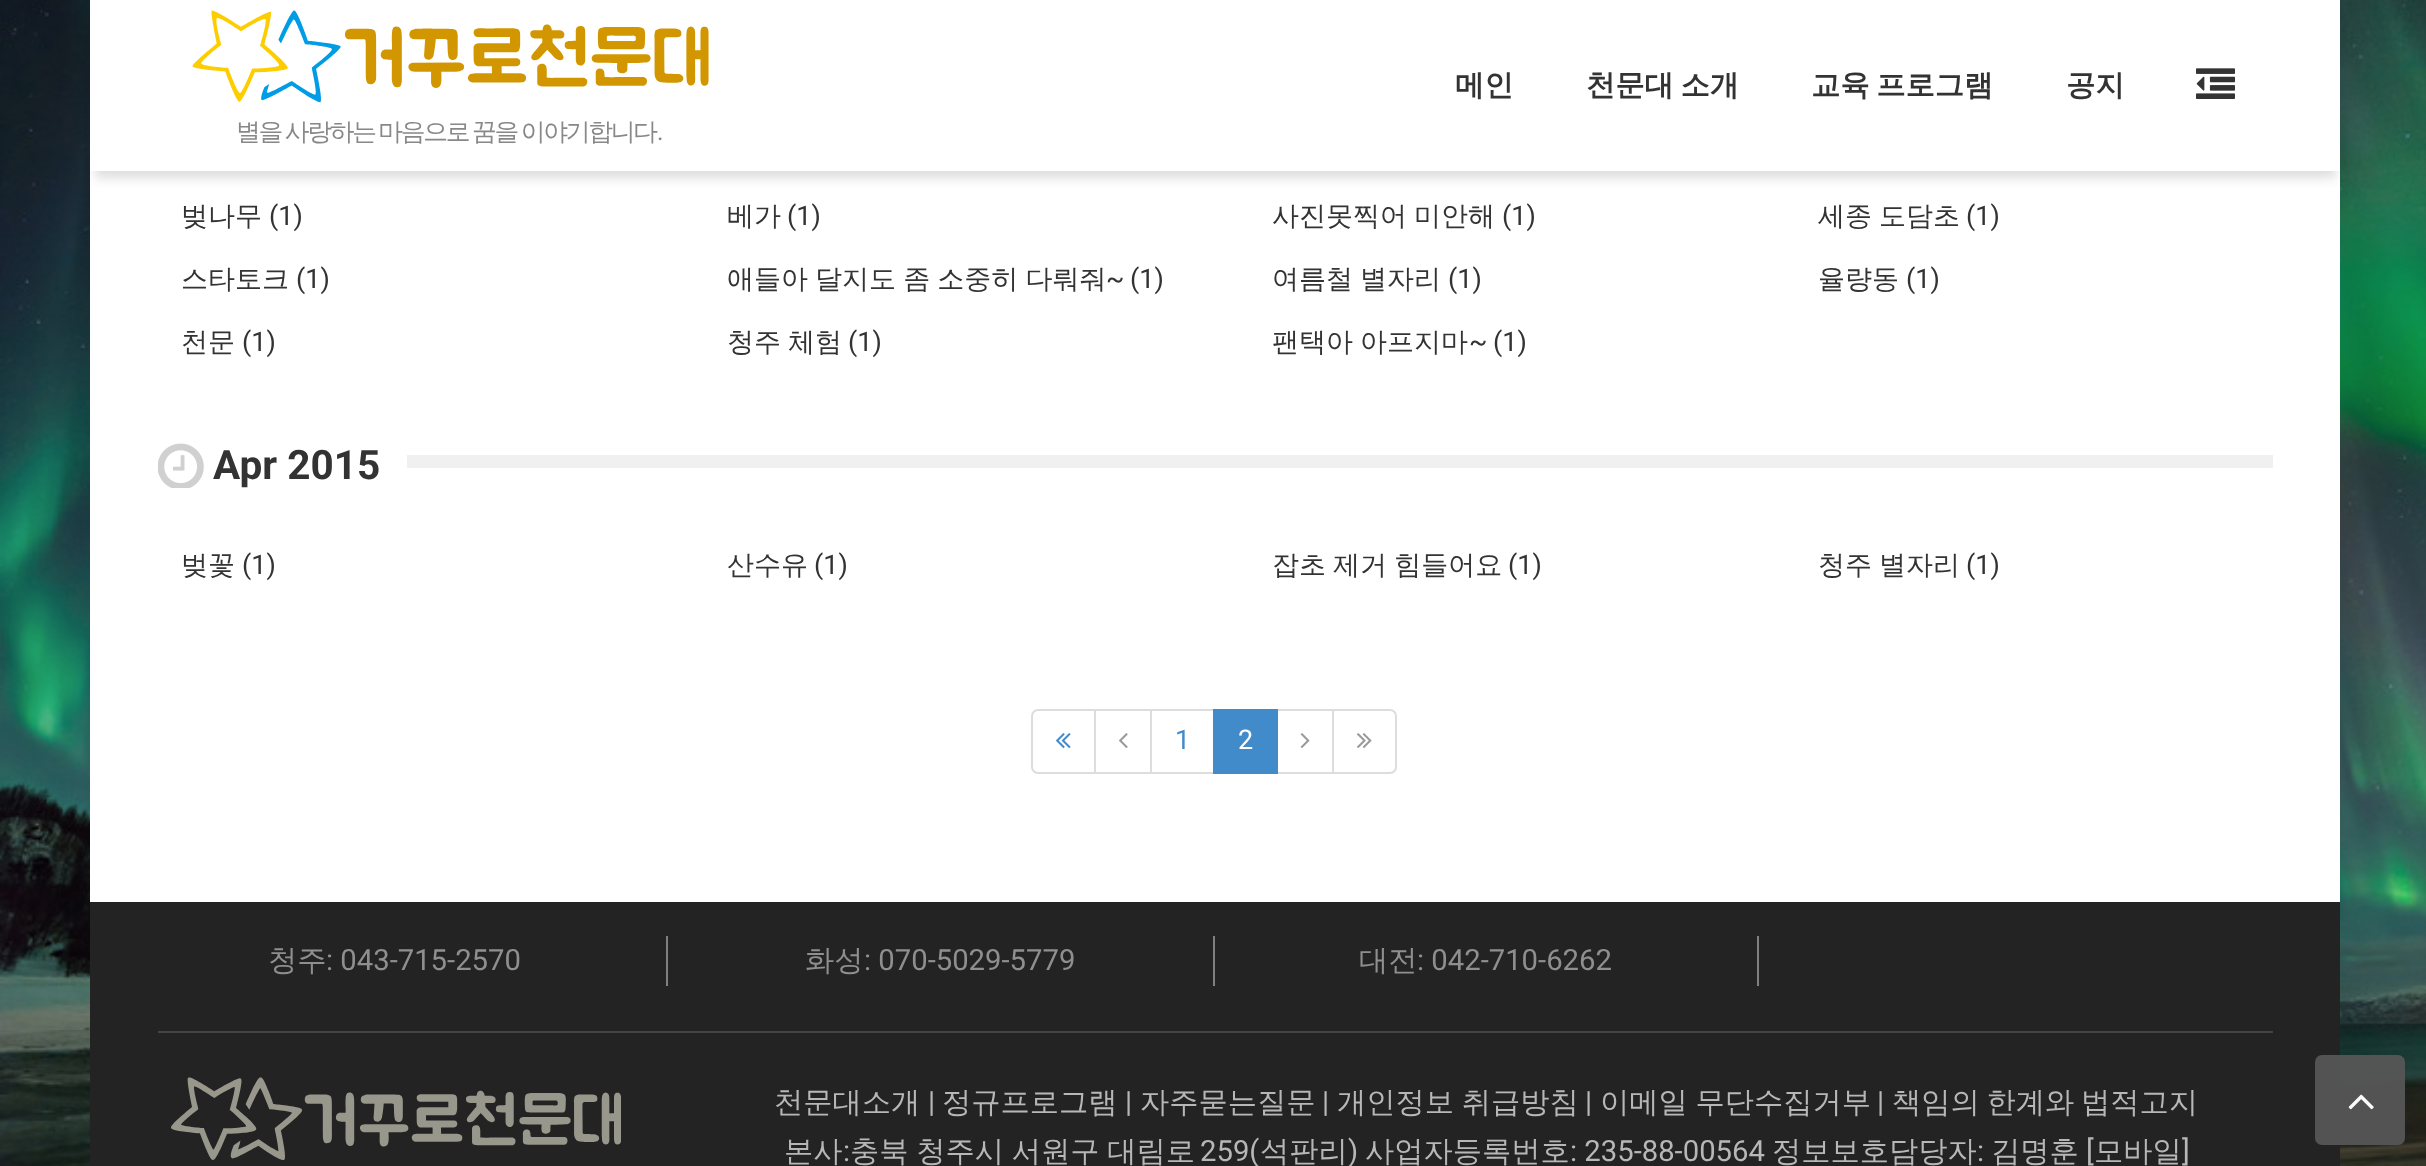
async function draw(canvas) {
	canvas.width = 2426;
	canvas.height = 1166;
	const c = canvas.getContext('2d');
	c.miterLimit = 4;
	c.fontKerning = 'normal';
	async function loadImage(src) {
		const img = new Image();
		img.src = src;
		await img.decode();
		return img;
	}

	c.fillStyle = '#fff';
	c.fillRect(0, 0, 2426, 1166);
	c.drawImage(await loadImage('img1.png'), 0, 0, 2426, 1166);
	c.fillRect(90, 171, 2250, 731);
	c.fillStyle = '#19191926';
	c.filter = 'blur(5.5px)';
	c.beginPath();
	c.rect(95, 16, 2241, 162);
	c.fill();
	c.filter = 'none';
	c.fillStyle = '#fff';
	c.fillRect(90, 0, 2250, 171);
	c.font = 'bold 29.25px WenQuanYi Zen Hei';
	c.fillStyle = '#333';
	c.fillText('메인', 1455, 95);
	c.wordSpacing = '-2px';
	c.fillText('천문대 소개', 1586, 95);
	c.fillText('교육 프로그램', 1811, 95);
	c.wordSpacing = '0px';
	c.fillText('공지', 2066, 95);
	c.drawImage(await loadImage('img2.png'), 2196, 68, 39, 31);
	c.drawImage(await loadImage('img3.png'), 192, 10, 517, 93);
	c.letterSpacing = '-2.25px';
	c.wordSpacing = '-1.5px';
	c.font = '500 24.75px WenQuanYi Zen Hei';
	c.fillStyle = '#888';
	c.fillText('별을 사랑하는 마음으로 꿈을 이야기합니다', 236, 140);
	c.wordSpacing = '0px';
	c.font = '24.75px Roboto';
	c.fillText('.', 657, 140);
	c.letterSpacing = '0px';
	c.font = '500 27px WenQuanYi Zen Hei';
	c.fillStyle = '#333';
	c.fillText('벚나무', 181, 225);
	c.font = '27px Roboto';
	c.fillText('(1)', 269, 225);
	c.font = '500 27px WenQuanYi Zen Hei';
	c.fillText('베가', 727, 225);
	c.font = '27px Roboto';
	c.fillText('(1)', 787, 225);
	c.wordSpacing = '-1px';
	c.font = '500 27px WenQuanYi Zen Hei';
	c.fillText('사진못찍어 미안해', 1272, 225);
	c.wordSpacing = '0px';
	c.font = '27px Roboto';
	c.fillText('(1)', 1502, 225);
	c.wordSpacing = '-1px';
	c.font = '500 27px WenQuanYi Zen Hei';
	c.fillText('세종 도담초', 1818, 225);
	c.wordSpacing = '0px';
	c.font = '27px Roboto';
	c.fillText('(1)', 1966, 225);
	c.font = '500 27px WenQuanYi Zen Hei';
	c.fillText('스타토크', 181, 288);
	c.font = '27px Roboto';
	c.fillText('(1)', 296, 288);
	c.wordSpacing = '-1px';
	c.font = '500 27px WenQuanYi Zen Hei';
	c.fillText('애들아 달지도 좀 소중히 다뤄줘', 727, 288);
	c.wordSpacing = '0px';
	c.font = '27px Roboto';
	c.fillText('~', 1106, 288);
	c.fillText('(1)', 1130, 288);
	c.wordSpacing = '-1px';
	c.font = '500 27px WenQuanYi Zen Hei';
	c.fillText('여름철 별자리', 1272, 288);
	c.wordSpacing = '0px';
	c.font = '27px Roboto';
	c.fillText('(1)', 1448, 288);
	c.font = '500 27px WenQuanYi Zen Hei';
	c.fillText('율량동', 1818, 288);
	c.font = '27px Roboto';
	c.fillText('(1)', 1906, 288);
	c.font = '500 27px WenQuanYi Zen Hei';
	c.fillText('천문', 181, 351);
	c.font = '27px Roboto';
	c.fillText('(1)', 242, 351);
	c.wordSpacing = '-1px';
	c.font = '500 27px WenQuanYi Zen Hei';
	c.fillText('청주 체험', 727, 351);
	c.wordSpacing = '0px';
	c.font = '27px Roboto';
	c.fillText('(1)', 848, 351);
	c.wordSpacing = '-1px';
	c.font = '500 27px WenQuanYi Zen Hei';
	c.fillText('팬택아 아프지마', 1272, 351);
	c.wordSpacing = '0px';
	c.font = '27px Roboto';
	c.fillText('~', 1469, 351);
	c.fillText('(1)', 1493, 351);
	c.drawImage(await loadImage('img4.png'), 158, 443, 46, 45);
	c.font = 'bold 40.5px Roboto';
	c.fillText('Apr 2015', 213, 479);
	c.fillStyle = '#f0f0f0';
	c.fillRect(407, 455, 1866, 13);
	c.font = '500 27px WenQuanYi Zen Hei';
	c.fillStyle = '#333';
	c.fillText('벚꽃', 181, 574);
	c.font = '27px Roboto';
	c.fillText('(1)', 242, 574);
	c.font = '500 27px WenQuanYi Zen Hei';
	c.fillText('산수유', 727, 574);
	c.font = '27px Roboto';
	c.fillText('(1)', 814, 574);
	c.wordSpacing = '-1px';
	c.font = '500 27px WenQuanYi Zen Hei';
	c.fillText('잡초 제거 힘들어요', 1272, 574);
	c.wordSpacing = '0px';
	c.font = '27px Roboto';
	c.fillText('(1)', 1508, 574);
	c.wordSpacing = '-1px';
	c.font = '500 27px WenQuanYi Zen Hei';
	c.fillText('청주 별자리', 1818, 574);
	c.wordSpacing = '0px';
	c.font = '27px Roboto';
	c.fillText('(1)', 1966, 574);
	c.beginPath();
	c.roundRect(1032, 710, 63, 63, [6, 0, 0, 6]);
	c.strokeStyle = '#ddd';
	c.lineWidth = 2;
	c.stroke();
	c.drawImage(await loadImage('img5.png'), 1056, 733, 15, 15);
	c.strokeRect(1095, 710, 56, 63);
	c.drawImage(await loadImage('img6.png'), 1119, 733, 9, 15);
	c.strokeRect(1151, 710, 63, 63);
	c.fillStyle = '#428bca';
	c.fillText('1', 1175, 749);
	c.strokeRect(1277, 710, 56, 63);
	c.fillRect(1213, 709, 65, 65);
	c.fillStyle = '#fff';
	c.fillText('2', 1238, 749);
	c.drawImage(await loadImage('img7.png'), 1300, 733, 10, 15);
	c.beginPath();
	c.roundRect(1333, 710, 63, 63, [0, 6, 6, 0]);
	c.fill();
	c.stroke();
	c.drawImage(await loadImage('img8.png'), 1357, 733, 15, 15);
	c.fillStyle = '#232323';
	c.fillRect(90, 902, 2250, 264);
	c.fillStyle = '#808080';
	c.fillRect(666, 936, 2, 50);
	c.font = '500 29.25px WenQuanYi Zen Hei';
	c.fillStyle = '#8f8f8f';
	c.fillText('청주', 268, 970);
	c.font = '29.25px Roboto';
	c.fillText(': 043-715-2570', 326, 970);
	c.fillStyle = '#808080';
	c.fillRect(1213, 936, 2, 50);
	c.font = '500 29.25px WenQuanYi Zen Hei';
	c.fillStyle = '#8f8f8f';
	c.fillText('화성', 805, 970);
	c.font = '29.25px Roboto';
	c.fillText(': 070-5029-5779', 864, 970);
	c.fillStyle = '#808080';
	c.fillRect(1757, 936, 2, 50);
	c.font = '500 29.25px WenQuanYi Zen Hei';
	c.fillStyle = '#8f8f8f';
	c.fillText('대전', 1359, 970);
	c.font = '29.25px Roboto';
	c.fillText(': 042-710-6262', 1417, 970);
	c.fillStyle = '#444';
	c.fillRect(158, 1031, 2115, 2);
	c.drawImage(await loadImage('img9.png'), 171, 1077, 450, 84);
	c.font = '500 29.25px WenQuanYi Zen Hei';
	c.fillStyle = '#b7b7b7';
	c.fillText('천문대소개', 774, 1112);
	c.font = '29.25px Roboto';
	c.fillText('|', 928, 1112);
	c.font = '500 29.25px WenQuanYi Zen Hei';
	c.fillText('정규프로그램', 942, 1112);
	c.font = '29.25px Roboto';
	c.fillText('|', 1125, 1112);
	c.font = '500 29.25px WenQuanYi Zen Hei';
	c.fillText('자주묻는질문', 1140, 1112);
	c.font = '29.25px Roboto';
	c.fillText('|', 1322, 1112);
	c.wordSpacing = '-1px';
	c.font = '500 29.25px WenQuanYi Zen Hei';
	c.fillText('개인정보 취급방침', 1337, 1112);
	c.wordSpacing = '0px';
	c.font = '29.25px Roboto';
	c.fillText('|', 1585, 1112);
	c.wordSpacing = '-1px';
	c.font = '500 29.25px WenQuanYi Zen Hei';
	c.fillText('이메일 무단수집거부', 1600, 1112);
	c.wordSpacing = '0px';
	c.font = '29.25px Roboto';
	c.fillText('|', 1877, 1112);
	c.wordSpacing = '-2px';
	c.font = '500 29.25px WenQuanYi Zen Hei';
	c.fillText('책임의 한계와 법적고지', 1892, 1112);
	c.wordSpacing = '0px';
	c.fillText('본사', 784, 1161);
	c.font = '29.25px Roboto';
	c.fillText(':', 843, 1161);
	c.wordSpacing = '-1px';
	c.font = '500 29.25px WenQuanYi Zen Hei';
	c.fillText('충북 청주시 서원구 대림로', 850, 1161);
	c.wordSpacing = '0px';
	c.font = '29.25px Roboto';
	c.fillText('259(', 1200, 1161);
	c.font = '500 29.25px WenQuanYi Zen Hei';
	c.fillText('석판리', 1260, 1161);
	c.font = '29.25px Roboto';
	c.fillText(')', 1348, 1161);
	c.font = '500 29.25px WenQuanYi Zen Hei';
	c.fillText('사업자등록번호', 1365, 1161);
	c.font = '29.25px Roboto';
	c.fillText(': 235-88-00564', 1570, 1161);
	c.font = '500 29.25px WenQuanYi Zen Hei';
	c.fillText('정보보호담당자', 1772, 1161);
	c.font = '29.25px Roboto';
	c.fillText(':', 1977, 1161);
	c.font = '500 29.25px WenQuanYi Zen Hei';
	c.fillText('김명훈', 1991, 1161);
	c.font = '29.25px Roboto';
	c.fillText('[', 2086, 1161);
	c.font = '500 29.25px WenQuanYi Zen Hei';
	c.fillText('모바일', 2094, 1161);
	c.font = '29.25px Roboto';
	c.fillText(']', 2182, 1161);
	c.fillStyle = '#555555fa';
	c.beginPath();
	c.roundRect(2315, 1055, 90, 90, 7);
	c.fill();
	c.drawImage(await loadImage('img10.png'), 2348, 1094, 26, 16);
}

draw(document.querySelector('canvas'));
